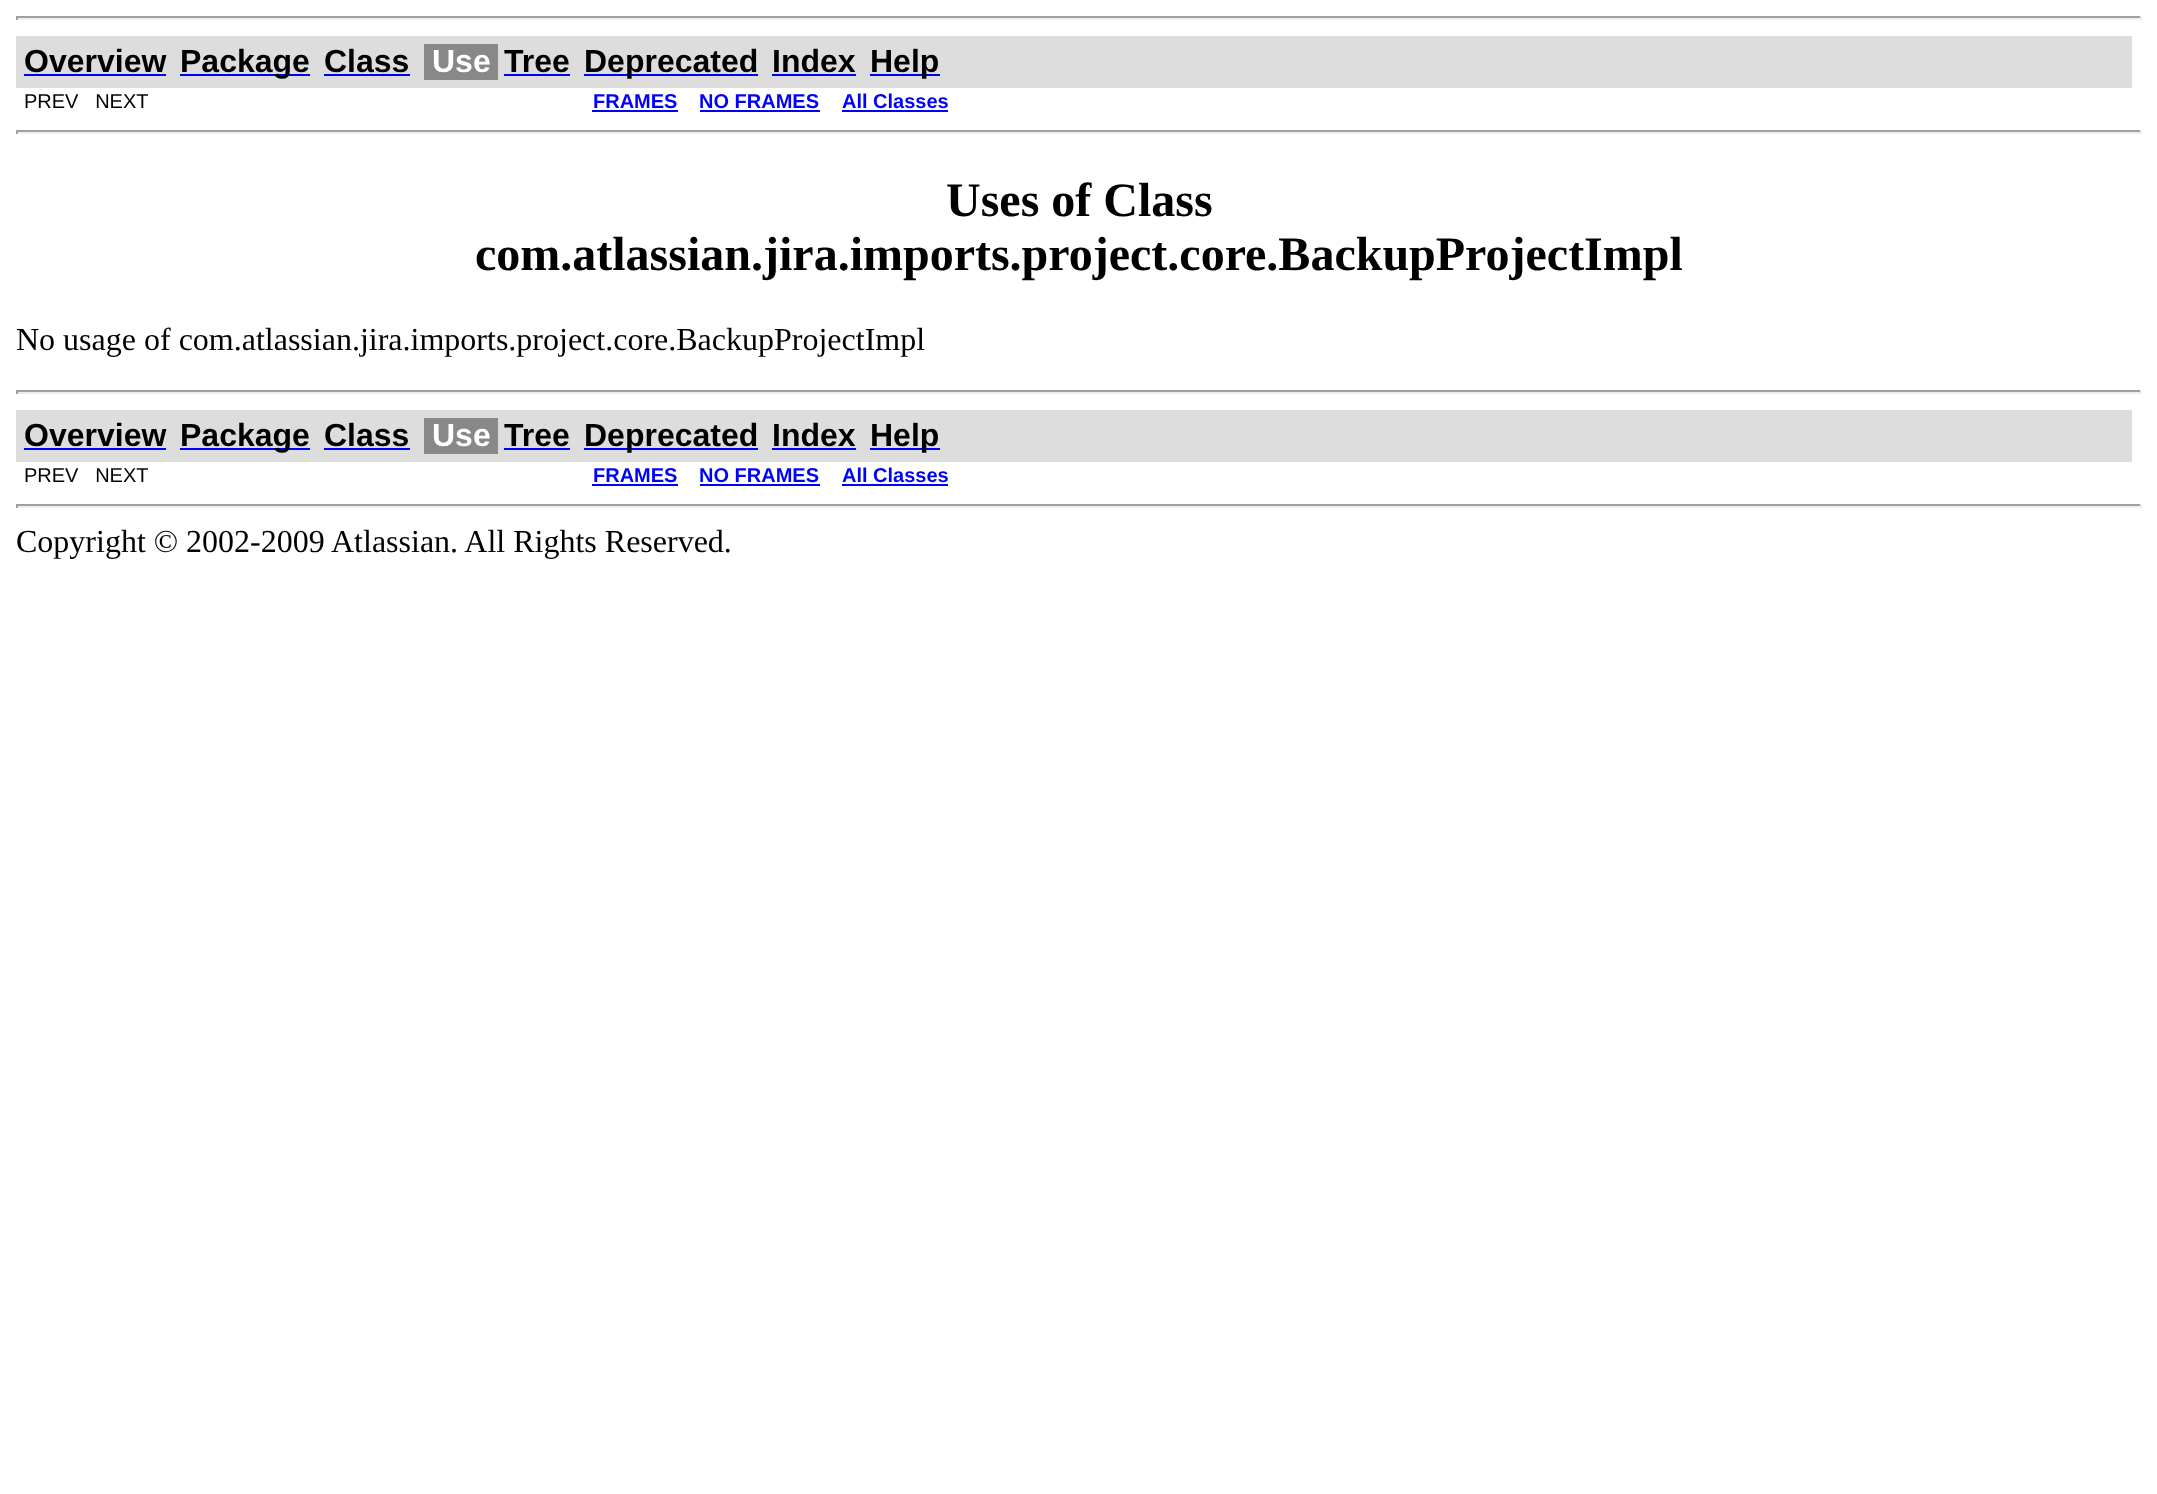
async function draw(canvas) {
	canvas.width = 2157;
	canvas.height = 1494;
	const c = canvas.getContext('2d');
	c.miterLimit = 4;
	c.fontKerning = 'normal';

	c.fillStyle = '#fff';
	c.fillRect(0, 0, 2157, 1494);
	for (const [x, y, w, h, color] of [
		[16, 16, 2126, 2, '#9f9f9f'],
		[2140, 16, 2, 4, '#eee'],
		[16, 18, 2126, 2, '#eee'],
		[16, 16, 2, 4, '#9f9f9f'],
		[16, 36, 2116, 52, '#ddd'],
	]) {
		c.fillStyle = color;
		c.fillRect(x, y, w, h);
	}
	c.font = 'bold 32px Liberation Sans';
	c.fillStyle = '#000';
	c.fillText('Overview', 24, 72);
	c.fillStyle = '#00f';
	c.fillRect(24, 74, 142, 2);
	c.fillRect(180, 74, 130, 2);
	c.fillStyle = '#000';
	c.fillText('Package', 180, 72);
	c.fillText('Class', 324, 72);
	c.fillStyle = '#00f';
	c.fillRect(324, 74, 86, 2);
	c.fillStyle = '#888';
	c.fillRect(424, 44, 74, 36);
	c.fillStyle = '#fff';
	c.fillText('Use', 432, 72);
	c.fillStyle = '#000';
	c.fillText('Tree', 504, 72);
	c.fillStyle = '#00f';
	c.fillRect(504, 74, 66, 2);
	c.fillRect(584, 74, 174, 2);
	c.fillStyle = '#000';
	c.fillText('Deprecated', 584, 72);
	c.fillText('Index', 772, 72);
	c.fillStyle = '#00f';
	c.fillRect(772, 74, 84, 2);
	c.fillRect(870, 74, 70, 2);
	c.fillStyle = '#000';
	c.fillText('Help', 870, 72);
	c.font = '20px Liberation Sans';
	c.fillText('PREV   NEXT', 24, 108);
	c.font = 'bold 20px Liberation Sans';
	c.fillStyle = '#00f';
	c.fillText('FRAMES', 593, 108);
	c.fillRect(592, 110, 86, 2);
	c.fillText('NO FRAMES', 699, 108);
	c.fillRect(700, 110, 120, 2);
	c.fillText('All Classes', 842, 108);
	for (const [x, y, w, h, color] of [
		[842, 110, 106, 2, '#00f'],
		[16, 130, 2126, 2, '#9f9f9f'],
		[2140, 130, 2, 4, '#eee'],
		[16, 132, 2126, 2, '#eee'],
		[16, 130, 2, 4, '#9f9f9f'],
	]) {
		c.fillStyle = color;
		c.fillRect(x, y, w, h);
	}
	c.font = 'bold 48px Liberation Serif';
	c.fillStyle = '#000';
	c.fillText('Uses of Class', 946, 216);
	c.fillText('com.atlassian.jira.imports.project.core.BackupProjectImpl', 475, 270);
	c.font = '32px Liberation Serif';
	c.fillText('No usage of com.atlassian.jira.imports.project.core.BackupProjectImpl', 16, 350);
	for (const [x, y, w, h, color] of [
		[16, 390, 2126, 2, '#9f9f9f'],
		[2140, 390, 2, 4, '#eee'],
		[16, 392, 2126, 2, '#eee'],
		[16, 390, 2, 4, '#9f9f9f'],
		[16, 410, 2116, 52, '#ddd'],
	]) {
		c.fillStyle = color;
		c.fillRect(x, y, w, h);
	}
	c.font = 'bold 32px Liberation Sans';
	c.fillStyle = '#000';
	c.fillText('Overview', 24, 446);
	c.fillStyle = '#00f';
	c.fillRect(24, 448, 142, 2);
	c.fillRect(180, 448, 130, 2);
	c.fillStyle = '#000';
	c.fillText('Package', 180, 446);
	c.fillText('Class', 324, 446);
	c.fillStyle = '#00f';
	c.fillRect(324, 448, 86, 2);
	c.fillStyle = '#888';
	c.fillRect(424, 418, 74, 36);
	c.fillStyle = '#fff';
	c.fillText('Use', 432, 446);
	c.fillStyle = '#000';
	c.fillText('Tree', 504, 446);
	c.fillStyle = '#00f';
	c.fillRect(504, 448, 66, 2);
	c.fillRect(584, 448, 174, 2);
	c.fillStyle = '#000';
	c.fillText('Deprecated', 584, 446);
	c.fillText('Index', 772, 446);
	c.fillStyle = '#00f';
	c.fillRect(772, 448, 84, 2);
	c.fillRect(870, 448, 70, 2);
	c.fillStyle = '#000';
	c.fillText('Help', 870, 446);
	c.font = '20px Liberation Sans';
	c.fillText('PREV   NEXT', 24, 482);
	c.font = 'bold 20px Liberation Sans';
	c.fillStyle = '#00f';
	c.fillText('FRAMES', 593, 482);
	c.fillRect(592, 484, 86, 2);
	c.fillText('NO FRAMES', 699, 482);
	c.fillRect(700, 484, 120, 2);
	c.fillText('All Classes', 842, 482);
	for (const [x, y, w, h, color] of [
		[842, 484, 106, 2, '#00f'],
		[16, 504, 2126, 2, '#9f9f9f'],
		[2140, 504, 2, 4, '#eee'],
		[16, 506, 2126, 2, '#eee'],
		[16, 504, 2, 4, '#9f9f9f'],
	]) {
		c.fillStyle = color;
		c.fillRect(x, y, w, h);
	}
	c.font = '32px Liberation Serif';
	c.fillStyle = '#000';
	c.fillText('Copyright © 2002-2009 Atlassian. All Rights Reserved.', 16, 552);
}

draw(document.querySelector('canvas'));
